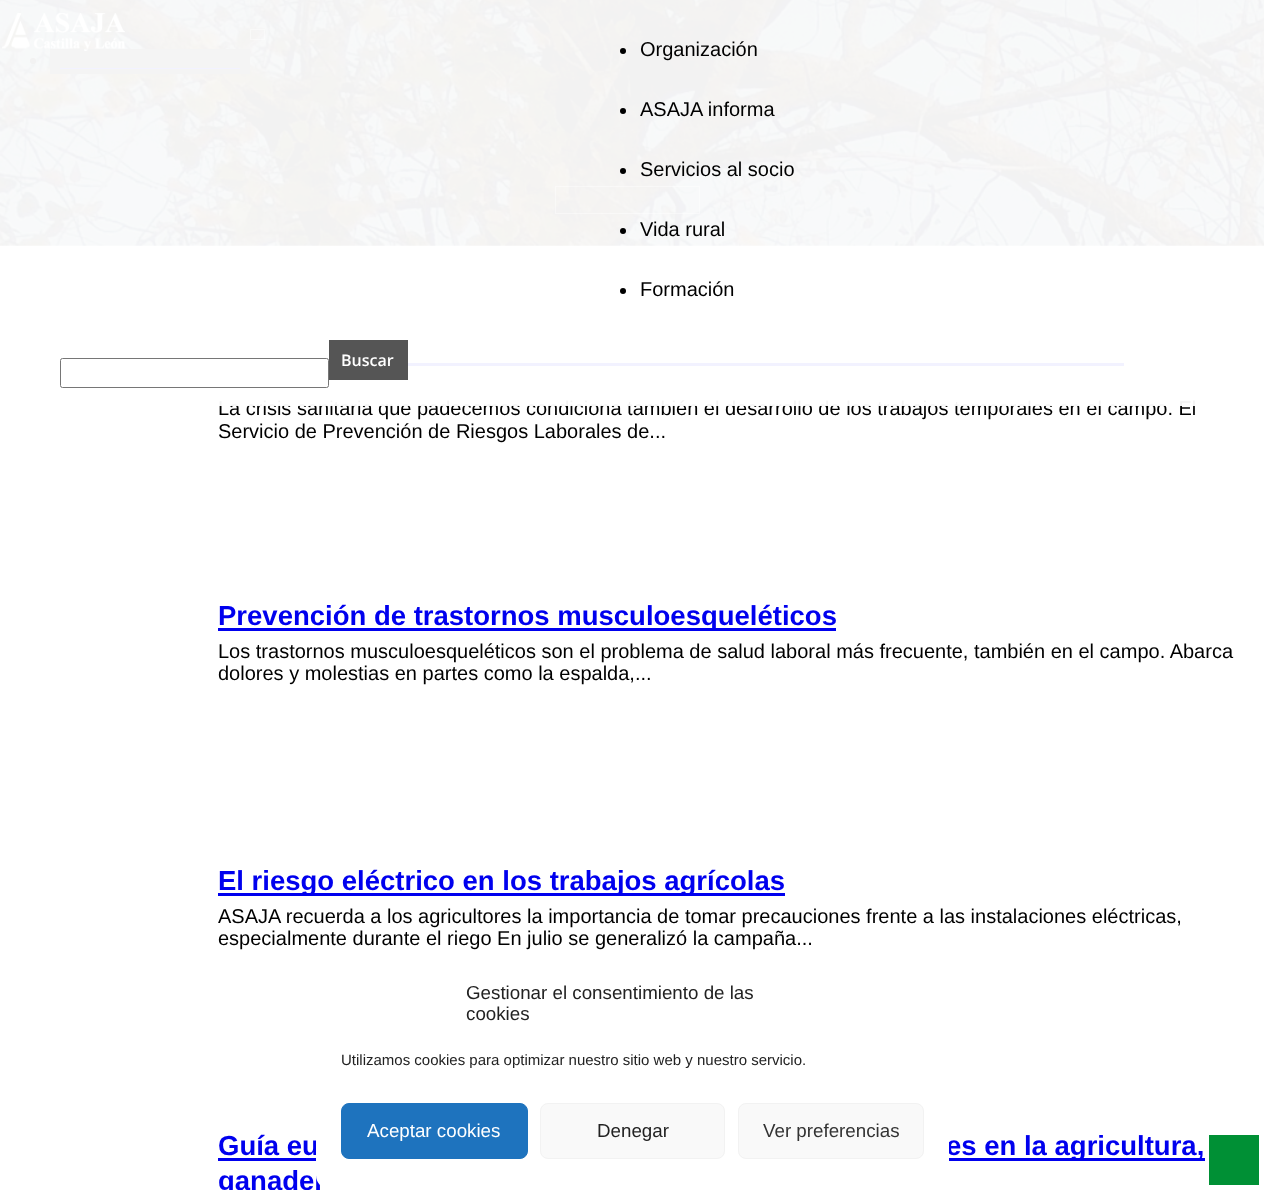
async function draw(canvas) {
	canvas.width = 1264;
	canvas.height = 1190;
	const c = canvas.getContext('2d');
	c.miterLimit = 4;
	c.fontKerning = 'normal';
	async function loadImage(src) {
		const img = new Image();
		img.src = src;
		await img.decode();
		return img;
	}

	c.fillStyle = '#fff';
	c.fillRect(0, 0, 1264, 1190);
	c.drawImage(await loadImage('img1.png'), 0, 0, 1264, 246);
	c.strokeStyle = '#ffffff66';
	c.strokeRect(250.5, 29.5, 14, 10);
	c.fillStyle = '#000';
	c.beginPath();
	c.arc(33, 61, 3, 0, 2 * Math.PI);
	c.fill();
	c.fillStyle = '#333';
	c.fillRect(50, 49, 200, 25);
	c.fillStyle = '#00e';
	c.fillRect(60, 68, 180, 1);
	c.strokeRect(555.5, 186.5, 144, 27);
	c.fillRect(408, 363, 716, 3);
	c.font = '20px Liberation Sans';
	c.fillStyle = '#000';
	c.fillText('La crisis sanitaria que padecemos condiciona también el desarrollo de los trabajos temporales en el campo. El', 218, 415);
	c.fillStyle = '#fffffff2';
	c.fillRect(0, 0, 1264, 406);
	c.drawImage(await loadImage('img2.png'), 2, 13, 123, 38);
	c.fillStyle = '#000';
	c.beginPath();
	c.arc(623, 51, 3, 0, 2 * Math.PI);
	c.fill();
	c.fillText('Organización', 640, 56);
	c.beginPath();
	c.arc(623, 111, 3, 0, 2 * Math.PI);
	c.fill();
	c.fillText('ASAJA informa', 640, 116);
	c.beginPath();
	c.arc(623, 171, 3, 0, 2 * Math.PI);
	c.fill();
	c.fillText('Servicios al socio', 640, 176);
	c.beginPath();
	c.arc(623, 231, 3, 0, 2 * Math.PI);
	c.fill();
	c.fillText('Vida rural', 640, 236);
	c.beginPath();
	c.arc(623, 291, 3, 0, 2 * Math.PI);
	c.fill();
	c.fillText('Formación', 640, 296);
	c.beginPath();
	c.roundRect(60.5, 358.5, 268, 29, 2);
	c.strokeStyle = '#767676';
	c.stroke();
	c.fillStyle = '#555';
	c.fillRect(329, 340, 79, 40);
	c.font = '600 16px Open Sans';
	c.fillStyle = '#fff';
	c.fillText('Buscar', 341, 366);
	c.font = '20px Liberation Sans';
	c.fillStyle = '#000';
	c.fillText('Servicio de Prevención de Riesgos Laborales de...', 218, 438);
	c.fillStyle = '#00e';
	c.fillRect(218, 628, 618, 3);
	c.font = 'bold 27.5px Liberation Sans';
	c.fillText('Prevención de trastornos musculoesqueléticos', 218, 625);
	c.font = '20px Liberation Sans';
	c.fillStyle = '#000';
	c.fillText('Los trastornos musculoesqueléticos son el problema de salud laboral más frecuente, también en el campo. Abarca', 218, 658);
	c.fillText('dolores y molestias en partes como la espalda,...', 218, 680);
	c.fillStyle = '#00e';
	c.fillRect(218, 893, 567, 3);
	c.font = 'bold 27.5px Liberation Sans';
	c.fillText('El riesgo eléctrico en los trabajos agrícolas', 218, 890);
	c.font = '20px Liberation Sans';
	c.fillStyle = '#000';
	c.fillText('ASAJA recuerda a los agricultores la importancia de tomar precauciones frente a las instalaciones eléctricas,', 218, 923);
	c.fillText('especialmente durante el riego En julio se generalizó la campaña...', 218, 945);
	c.font = 'bold 27.5px Liberation Sans';
	c.fillStyle = '#00e';
	c.fillText('Guía eu', 218, 1155);
	c.fillRect(218, 1158, 987, 3);
	c.fillText('es en la agricultura,', 946, 1155);
	c.fillText('ganader', 218, 1190);
	c.fillStyle = '#fff';
	c.beginPath();
	c.roundRect(316, 963, 633, 227, 15);
	c.fill();
	c.font = '18.75px Liberation Sans';
	c.fillStyle = '#222';
	c.fillText('Gestionar el consentimiento de las', 466, 999);
	c.fillText('cookies', 466, 1020);
	c.font = '15px Liberation Sans';
	c.fillText('Utilizamos cookies para optimizar nuestro sitio web y nuestro servicio.', 341, 1065);
	c.fillStyle = '#1e73be';
	c.beginPath();
	c.roundRect(341.5, 1103.5, 186, 55, 7.5);
	c.fill();
	c.strokeStyle = '#1e73be';
	c.stroke();
	c.font = '18.75px Liberation Sans';
	c.fillStyle = '#fff';
	c.fillText('Aceptar cookies', 367, 1137);
	c.fillStyle = '#f9f9f9';
	c.beginPath();
	c.roundRect(540.5, 1103.5, 184, 55, 7.5);
	c.fill();
	c.strokeStyle = '#f2f2f2';
	c.stroke();
	c.fillStyle = '#222';
	c.fillText('Denegar', 597, 1137);
	c.fillStyle = '#f9f9f9';
	c.beginPath();
	c.roundRect(738.5, 1103.5, 185, 55, 7.5);
	c.fill();
	c.stroke();
	c.fillStyle = '#333';
	c.fillText('Ver preferencias', 763, 1137);
	c.fillStyle = '#009035';
	c.fillRect(1209, 1135, 50, 50);
}

draw(document.querySelector('canvas'));
